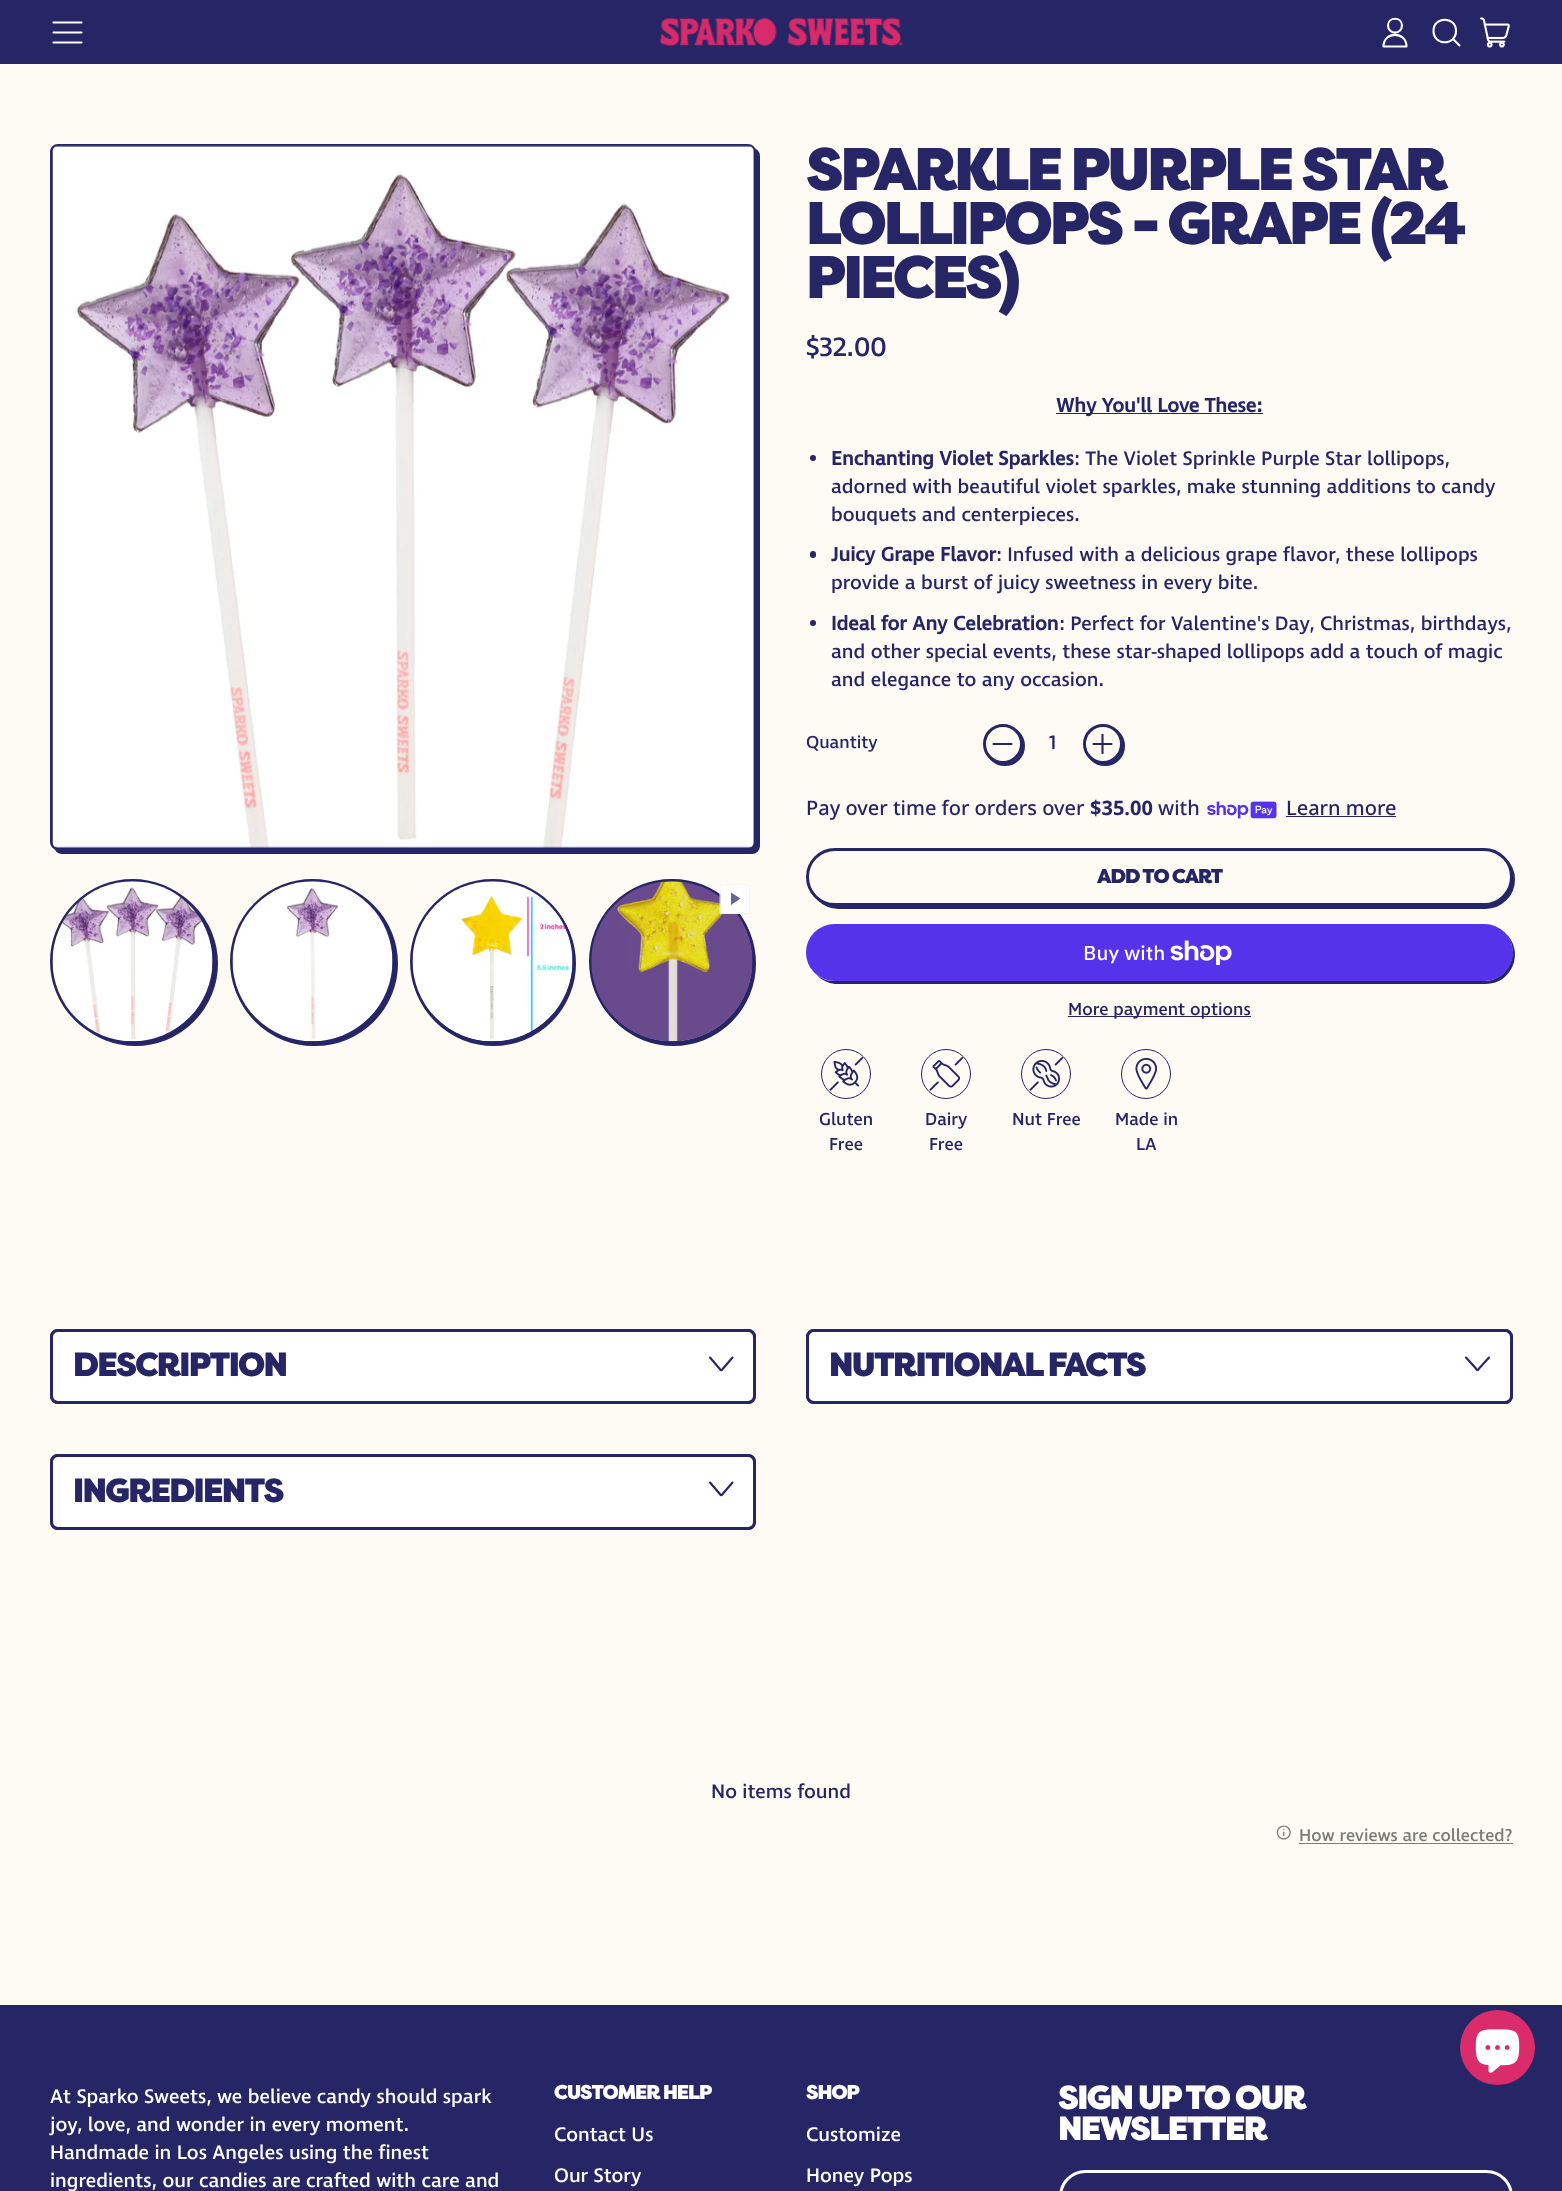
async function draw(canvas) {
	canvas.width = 1562;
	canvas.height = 2191;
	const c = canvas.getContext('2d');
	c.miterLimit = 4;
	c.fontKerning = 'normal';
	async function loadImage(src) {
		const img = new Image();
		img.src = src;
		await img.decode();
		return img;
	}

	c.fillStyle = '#fefbf5';
	c.fillRect(0, 0, 1562, 2191);
	c.fillStyle = '#262666';
	c.fillRect(0, 0, 1562, 64);
	c.beginPath();
	c.moveTo(81.5, 42.5);
	c.lineTo(53.5, 42.5);
	c.moveTo(81.5, 32.5);
	c.lineTo(53.5, 32.5);
	c.moveTo(81.5, 22.5);
	c.lineTo(53.5, 22.5);
	c.strokeStyle = '#fff';
	c.lineWidth = 2.1;
	c.lineCap = 'round';
	c.lineJoin = 'round';
	c.stroke();
	c.drawImage(await loadImage('img1.png'), 659, 17, 244, 30);
	c.beginPath();
	c.moveTo(1388, 25.5);
	c.bezierCurveTo(1388, 35, 1402, 35, 1402, 25.5);
	c.bezierCurveTo(1402, 16.5, 1388, 16.5, 1388, 25.5);
	c.closePath();
	c.moveTo(1383.5, 46.5);
	c.bezierCurveTo(1383.5, 31, 1406.5, 31, 1406.5, 46.5);
	c.closePath();
	c.stroke();
	c.beginPath();
	c.moveTo(1433.5, 31);
	c.bezierCurveTo(1433.5, 46, 1456, 46, 1456, 31);
	c.bezierCurveTo(1456, 16, 1433.5, 16, 1433.5, 31);
	c.closePath();
	c.moveTo(1459.5, 45.5);
	c.lineTo(1453, 39);
	c.stroke();
	c.drawImage(await loadImage('img2.png'), 1480, 17, 30, 31);
	c.beginPath();
	c.roundRect(55.5, 149.5, 703, 703, 6.5);
	c.fill();
	c.strokeStyle = '#262666';
	c.lineWidth = 3;
	c.lineJoin = 'miter';
	c.stroke();
	c.beginPath();
	c.roundRect(51.5, 145.5, 703, 703, 6.5);
	c.stroke();
	c.drawImage(await loadImage('img3.png'), 52, 145, 702, 703);
	c.beginPath();
	c.arc(135.5, 963.5, 81, 0, 2 * Math.PI);
	c.fill();
	c.stroke();
	c.beginPath();
	c.arc(132.5, 961.5, 81, 0, 2 * Math.PI);
	c.stroke();
	c.drawImage(await loadImage('img4.png'), 52, 881, 161, 161);
	c.beginPath();
	c.roundRect(232.5, 882.5, 164, 162, 81);
	c.fill();
	c.stroke();
	c.beginPath();
	c.arc(312.5, 961.5, 81, 0, 2 * Math.PI);
	c.stroke();
	c.drawImage(await loadImage('img5.png'), 232, 881, 161, 161);
	c.beginPath();
	c.arc(493.5, 963.5, 81, 0, 2 * Math.PI);
	c.stroke();
	c.beginPath();
	c.arc(492.5, 961.5, 81, 0, 2 * Math.PI);
	c.stroke();
	c.drawImage(await loadImage('img6.png'), 412, 881, 161, 161);
	c.beginPath();
	c.arc(673.5, 963.5, 81, 0, 2 * Math.PI);
	c.stroke();
	c.beginPath();
	c.roundRect(590.5, 880.5, 163, 162, 81);
	c.stroke();
	c.drawImage(await loadImage('img7.png'), 591, 881, 162, 161);
	c.fillStyle = '#fff';
	c.beginPath();
	c.rect(720.5, 884.5, 29, 29);
	c.fill();
	c.strokeStyle = '#f4f4f7';
	c.lineWidth = 1;
	c.stroke();
	c.fillStyle = '#676794';
	c.beginPath();
	c.moveTo(731, 892.5);
	c.lineTo(731, 905);
	c.lineTo(740.5, 898.5);
	c.closePath();
	c.fill('evenodd');
	c.letterSpacing = '-3px';
	c.font = '900 60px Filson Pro';
	c.fillStyle = '#262666';
	for (const [text, x, y] of [
		['SPARKLE PURPLE STAR', 806, 190],
		['LOLLIPOPS - GRAPE (24', 806, 244],
		['PIECES)', 806, 298],
	]) {
		c.fillText(text, x, y);
	}
	c.letterSpacing = '0px';
	c.font = '500 27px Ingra';
	c.fillText('$32.00', 806, 356);
	c.fillRect(1056, 413, 207, 1);
	c.font = 'bold 20px Ingra';
	c.fillText('Why You\'ll Love These:', 1056, 412);
	c.beginPath();
	c.arc(813, 458, 3, 0, 2 * Math.PI);
	c.fill();
	c.fillText('Enchanting Violet Sparkles', 831, 465);
	c.font = '500 20px Ingra';
	for (const [text, x, y] of [
		[': The Violet Sprinkle Purple Star lollipops,', 1074, 465],
		['adorned with beautiful violet sparkles, make stunning additions to candy', 831, 493],
		['bouquets and centerpieces.', 831, 521],
	]) {
		c.fillText(text, x, y);
	}
	c.beginPath();
	c.roundRect(810, 551, 6, 7, 3);
	c.fill();
	c.font = 'bold 20px Ingra';
	c.fillText('Juicy Grape Flavor', 831, 561);
	c.font = '500 20px Ingra';
	c.fillText(': Infused with a delicious grape flavor, these lollipops', 996, 561);
	c.fillText('provide a burst of juicy sweetness in every bite.', 831, 589);
	c.beginPath();
	c.arc(813, 623, 3, 0, 2 * Math.PI);
	c.fill();
	c.font = 'bold 20px Ingra';
	c.fillText('Ideal for Any Celebration', 831, 630);
	c.font = '500 20px Ingra';
	for (const [text, x, y] of [
		[': Perfect for Valentine\'s Day, Christmas, birthdays,', 1059, 630],
		['and other special events, these star-shaped lollipops add a touch of magic', 831, 658],
		['and elegance to any occasion.', 831, 686],
	]) {
		c.fillText(text, x, y);
	}
	c.font = '500 17.75px Ingra';
	c.fillText('Quantity', 806, 748);
	c.beginPath();
	c.arc(1005, 746, 18.5, 0, 2 * Math.PI);
	c.strokeStyle = '#262666';
	c.lineWidth = 3;
	c.stroke();
	c.fillStyle = '#fefbf5';
	c.beginPath();
	c.arc(1003, 744, 18.5, 0, 2 * Math.PI);
	c.fill();
	c.stroke();
	c.beginPath();
	c.moveTo(1011.5, 744);
	c.lineTo(993.5, 744);
	c.lineWidth = 2.1;
	c.lineJoin = 'round';
	c.stroke();
	c.font = '500 20px Ingra';
	c.fillStyle = '#262666';
	c.fillText('1', 1049, 749);
	c.beginPath();
	c.arc(1105, 746, 18.5, 0, 2 * Math.PI);
	c.lineWidth = 3;
	c.stroke();
	c.fillStyle = '#fefbf5';
	c.beginPath();
	c.arc(1103, 744, 18.5, 0, 2 * Math.PI);
	c.fill();
	c.stroke();
	c.save();
	c.beginPath();
	c.rect(1093, 734, 20, 20);
	c.clip();
	c.beginPath();
	c.moveTo(1102.5, 734.5);
	c.lineTo(1102.5, 753);
	c.lineWidth = 2.1;
	c.stroke();
	c.restore();
	c.beginPath();
	c.moveTo(1111.5, 744);
	c.lineTo(1093.5, 744);
	c.lineWidth = 2.1;
	c.stroke();
	c.font = '500 20px Noto Sans';
	c.fillStyle = '#262666';
	c.fillText('Pay over time for orders over', 806, 815);
	c.font = 'bold 20px Noto Sans';
	c.fillText('$35.00', 1090, 815);
	c.font = '500 20px Noto Sans';
	c.fillText('with', 1158, 815);
	c.drawImage(await loadImage('img8.png'), 1207, 801, 70, 18);
	c.fillText('Learn more', 1286, 815);
	c.fillRect(1286, 816, 110, 1);
	c.beginPath();
	c.roundRect(810.5, 851.5, 703, 56, 28);
	c.fill();
	c.lineWidth = 3;
	c.lineJoin = 'miter';
	c.stroke();
	c.fillStyle = '#fefbf5';
	c.beginPath();
	c.roundRect(807.5, 849.5, 704, 55, 27.5);
	c.fill();
	c.stroke();
	c.letterSpacing = '-1px';
	c.font = '900 20px Filson Pro';
	c.fillStyle = '#262666';
	c.fillText('ADD TO CART', 1097, 883);
	c.beginPath();
	c.moveTo(817, 975);
	c.bezierCurveTo(821, 980, 828, 983, 835, 984);
	c.lineTo(1486, 984);
	c.bezierCurveTo(1513, 984, 1525, 950, 1505, 933);
	c.bezierCurveTo(1522, 951, 1509, 981, 1484, 981);
	c.lineTo(832, 981);
	c.bezierCurveTo(827, 981, 821, 978, 817, 975);
	c.closePath();
	c.fill();
	c.fillStyle = '#5433eb';
	c.beginPath();
	c.roundRect(806, 924, 707, 57, 28.5);
	c.fill();
	c.letterSpacing = '0px';
	c.font = '500 20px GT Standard';
	c.fillStyle = '#fff';
	c.fillText('Buy with', 1083, 960);
	c.drawImage(await loadImage('img9.png'), 1170, 940, 62, 25);
	c.fillStyle = '#262666';
	c.fillRect(1068, 1016, 183, 1);
	c.font = '500 17.75px Ingra';
	c.fillText('More payment options', 1068, 1015);
	c.beginPath();
	c.arc(846, 1074, 24.5, 0, 2 * Math.PI);
	c.lineWidth = 1;
	c.stroke();
	c.drawImage(await loadImage('img10.png'), 829, 1057, 35, 34);
	c.fillText('Gluten', 819, 1125);
	c.fillText('Free', 829, 1150);
	c.beginPath();
	c.arc(946, 1074, 24.5, 0, 2 * Math.PI);
	c.stroke();
	c.drawImage(await loadImage('img11.png'), 929, 1057, 35, 34);
	c.fillText('Dairy', 925, 1125);
	c.fillText('Free', 929, 1150);
	c.beginPath();
	c.arc(1046, 1074, 24.5, 0, 2 * Math.PI);
	c.stroke();
	c.drawImage(await loadImage('img12.png'), 1029, 1057, 35, 34);
	c.fillText('Nut Free', 1012, 1125);
	c.beginPath();
	c.arc(1146, 1074, 24.5, 0, 2 * Math.PI);
	c.stroke();
	c.drawImage(await loadImage('img13.png'), 1135, 1057, 23, 33);
	c.fillText('Made in', 1115, 1125);
	c.fillText('LA', 1136, 1150);
	c.beginPath();
	c.roundRect(51.5, 1330.5, 703, 72, 6.5);
	c.lineWidth = 3;
	c.stroke();
	c.fillStyle = '#fff';
	c.beginPath();
	c.roundRect(51.5, 1330.5, 703, 72, 6.5);
	c.fill();
	c.stroke();
	c.letterSpacing = '-1.7px';
	c.font = '900 33.6px Filson Pro';
	c.fillStyle = '#262666';
	c.fillText('DESCRIPTION', 73, 1376);
	c.beginPath();
	c.moveTo(710, 1357.5);
	c.lineTo(719, 1368);
	c.bezierCurveTo(721.5, 1371, 721, 1371, 723.5, 1368);
	c.lineTo(732.5, 1357.5);
	c.lineWidth = 2.1;
	c.lineJoin = 'round';
	c.stroke();
	c.beginPath();
	c.roundRect(51.5, 1455.5, 703, 73, 6.5);
	c.lineWidth = 3;
	c.lineJoin = 'miter';
	c.stroke();
	c.fillStyle = '#fff';
	c.beginPath();
	c.roundRect(51.5, 1455.5, 703, 73, 6.5);
	c.fill();
	c.stroke();
	c.fillStyle = '#262666';
	c.fillText('INGREDIENTS', 73, 1502);
	c.beginPath();
	c.moveTo(710, 1482.5);
	c.lineTo(719, 1493);
	c.bezierCurveTo(721.5, 1496, 721, 1496, 723.5, 1493);
	c.lineTo(732.5, 1482.5);
	c.lineWidth = 2.1;
	c.lineJoin = 'round';
	c.stroke();
	c.beginPath();
	c.roundRect(807.5, 1330.5, 704, 72, 6.5);
	c.lineWidth = 3;
	c.lineJoin = 'miter';
	c.stroke();
	c.fillStyle = '#fff';
	c.beginPath();
	c.roundRect(807.5, 1330.5, 704, 72, 6.5);
	c.fill();
	c.stroke();
	c.fillStyle = '#262666';
	c.fillText('NUTRITIONAL FACTS', 829, 1376);
	c.beginPath();
	c.moveTo(1466, 1357.5);
	c.lineTo(1475.5, 1368);
	c.bezierCurveTo(1478, 1371, 1477, 1371, 1479.5, 1368);
	c.lineTo(1489, 1357.5);
	c.lineWidth = 2.1;
	c.lineJoin = 'round';
	c.stroke();
	c.letterSpacing = '0px';
	c.font = '500 20px Ingra';
	c.fillText('No items found', 711, 1798);
	c.drawImage(await loadImage('img14.png'), 1276, 1825, 15, 15);
	c.font = '500 17.5px Ingra';
	c.fillStyle = '#7b7b7b';
	c.fillText('How reviews are collected?', 1299, 1841);
	c.fillRect(1299, 1843, 214, 1);
	c.fillStyle = '#262666';
	c.fillRect(0, 2005, 1562, 186);
	c.fillStyle = '#da2b6b';
	c.beginPath();
	c.arc(1497.5, 2047.5, 37.5, 0, 2 * Math.PI);
	c.fill();
	c.drawImage(await loadImage('img15.png'), 1475, 2029, 45, 44);
	c.font = '500 20px Ingra';
	c.fillStyle = '#fff';
	for (const [text, x, y] of [
		['At Sparko Sweets, we believe candy should spark', 50, 2103],
		['joy, love, and wonder in every moment.', 50, 2131],
		['Handmade in Los Angeles using the finest', 50, 2159],
		['ingredients, our candies are crafted with care and', 50, 2187],
	]) {
		c.fillText(text, x, y);
	}
	c.letterSpacing = '-1px';
	c.font = '900 20px Filson Pro';
	c.fillText('CUSTOMER HELP', 554, 2099);
	c.letterSpacing = '0px';
	c.font = '500 20px Ingra';
	c.fillText('Contact Us', 554, 2141);
	c.fillText('Our Story', 554, 2182);
	c.letterSpacing = '-1px';
	c.font = '900 20px Filson Pro';
	c.fillText('SHOP', 806, 2099);
	c.letterSpacing = '0px';
	c.font = '500 20px Ingra';
	c.fillText('Customize', 806, 2141);
	c.fillText('Honey Pops', 806, 2182);
	c.letterSpacing = '-1.7px';
	c.font = '900 33.6px Filson Pro';
	c.fillText('SIGN UP TO OUR', 1058, 2109);
	c.fillText('NEWSLETTER', 1058, 2140);
	c.beginPath();
	c.roundRect(1060.5, 2171.5, 451, 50, 27.5);
	c.strokeStyle = '#fff';
	c.lineWidth = 3;
	c.lineJoin = 'miter';
	c.stroke();
}

draw(document.querySelector('canvas'));
